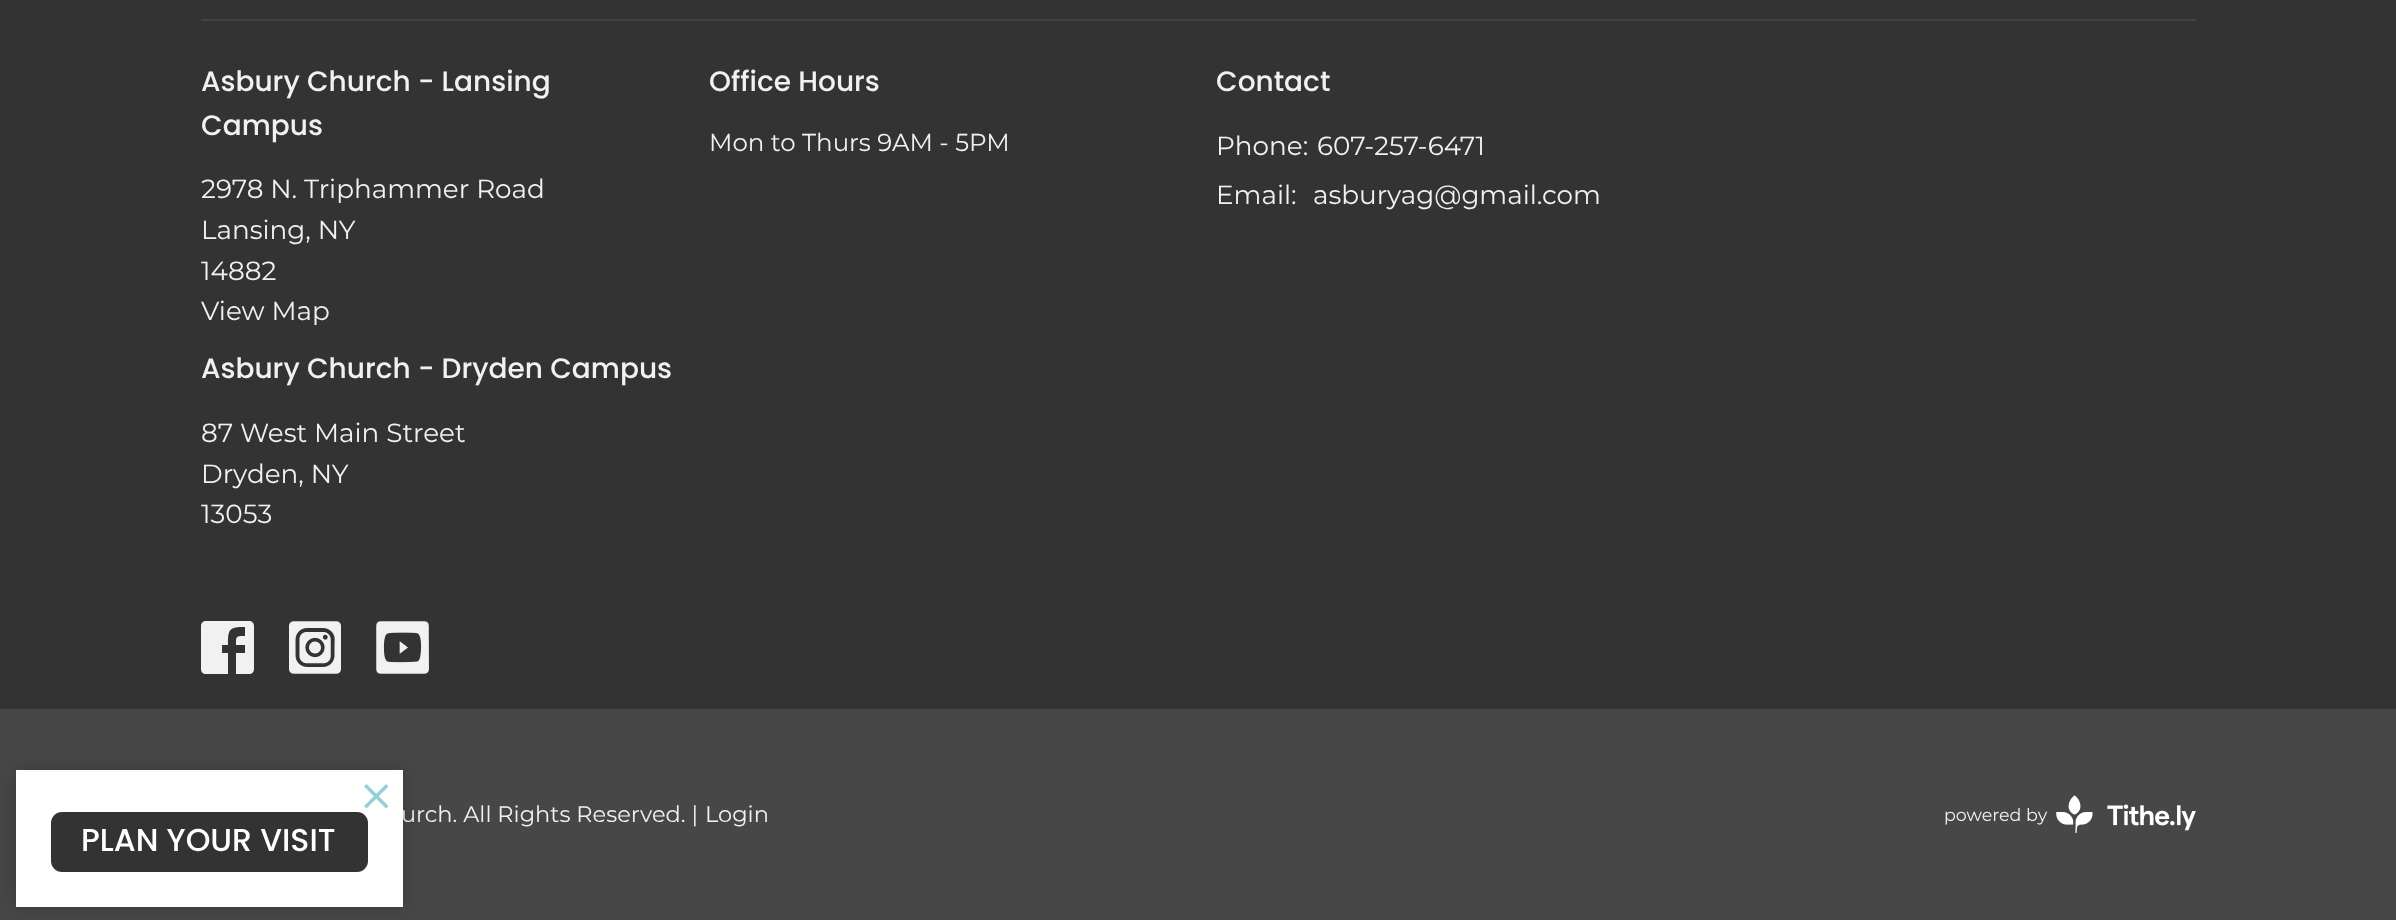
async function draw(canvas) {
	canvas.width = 2396;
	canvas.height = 920;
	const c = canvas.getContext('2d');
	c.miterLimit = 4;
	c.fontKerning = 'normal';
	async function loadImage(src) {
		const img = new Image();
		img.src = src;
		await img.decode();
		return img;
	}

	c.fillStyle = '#474747';
	c.fillRect(0, 0, 2396, 920);
	c.fillStyle = '#333';
	c.fillRect(0, 0, 2396, 709);
	c.fillStyle = '#424242';
	c.fillRect(201, 19, 1995, 2);
	c.font = '500 28px Poppins';
	c.fillStyle = '#f1f1f1';
	c.fillText('Asbury Church - Lansing', 201, 91);
	c.fillText('Campus', 201, 135);
	c.font = '26.25px Montserrat';
	for (const [text, x, y] of [
		['2978 N. Triphammer Road', 201, 198],
		['Lansing, NY', 201, 239],
		['14882', 201, 280],
		['View Map', 201, 320],
	]) {
		c.fillText(text, x, y);
	}
	c.font = '500 28px Poppins';
	c.fillText('Asbury Church - Dryden Campus', 201, 378);
	c.font = '26.25px Montserrat';
	for (const [text, x, y] of [
		['87 West Main Street', 201, 442],
		['Dryden, NY', 201, 483],
		['13053', 201, 523],
	]) {
		c.fillText(text, x, y);
	}
	c.font = '500 28px Poppins';
	c.fillText('Office Hours', 709, 91);
	c.font = '24.5px Montserrat';
	c.fillText('Mon to Thurs 9AM - 5PM', 709, 151);
	c.font = '500 28px Poppins';
	c.fillText('Contact', 1216, 91);
	c.font = '26.25px Montserrat';
	for (const [text, x, y] of [
		['Phone:', 1216, 155],
		['607-257-6471', 1317, 155],
		['Email:', 1216, 204],
		['asburyag@gmail.com', 1313, 204],
	]) {
		c.fillText(text, x, y);
	}
	c.beginPath();
	c.moveTo(245, 627);
	c.lineTo(245, 636);
	c.bezierCurveTo(236, 636, 236, 636, 236, 645);
	c.lineTo(245, 645);
	c.lineTo(245, 653);
	c.lineTo(236, 653);
	c.lineTo(236, 674);
	c.lineTo(249, 674);
	c.bezierCurveTo(252, 674, 254, 672, 254, 669);
	c.lineTo(254, 626);
	c.bezierCurveTo(254, 623, 252, 621, 249, 621);
	c.lineTo(206, 621);
	c.bezierCurveTo(203, 621, 201, 623, 201, 626);
	c.lineTo(201, 669);
	c.bezierCurveTo(201, 672, 203, 674, 206, 674);
	c.lineTo(228, 674);
	c.lineTo(228, 653);
	c.lineTo(222, 653);
	c.lineTo(222, 645);
	c.lineTo(228, 645);
	c.bezierCurveTo(228, 629, 229, 627, 245, 627);
	c.closePath();
	c.fill();
	c.drawImage(await loadImage('img1.png'), 289, 621, 52, 53);
	c.drawImage(await loadImage('img2.png'), 376, 621, 53, 53);
	c.font = '22.5px Montserrat';
	c.fillText('urch. All Rights Reserved. |', 401, 822);
	c.fillText('Login', 705, 822);
	c.font = '17.5px Montserrat';
	c.fillText('powered by', 1944, 821);
	c.drawImage(await loadImage('img3.png'), 2056, 795, 140, 38);
	c.fillStyle = '#00000033';
	c.filter = 'blur(9.5px)';
	c.beginPath();
	c.rect(16, 770, 387, 137);
	c.fill();
	c.filter = 'none';
	c.fillStyle = '#fff';
	c.fillRect(16, 770, 387, 137);
	c.drawImage(await loadImage('img4.png'), 364, 784, 25, 25);
	c.fillStyle = '#333';
	c.beginPath();
	c.roundRect(51, 812, 317, 60, 11);
	c.fill();
	c.font = '500 31.5px Poppins';
	c.fillStyle = '#fff';
	c.fillText('PLAN YOUR VISIT', 81, 851);
}

draw(document.querySelector('canvas'));
